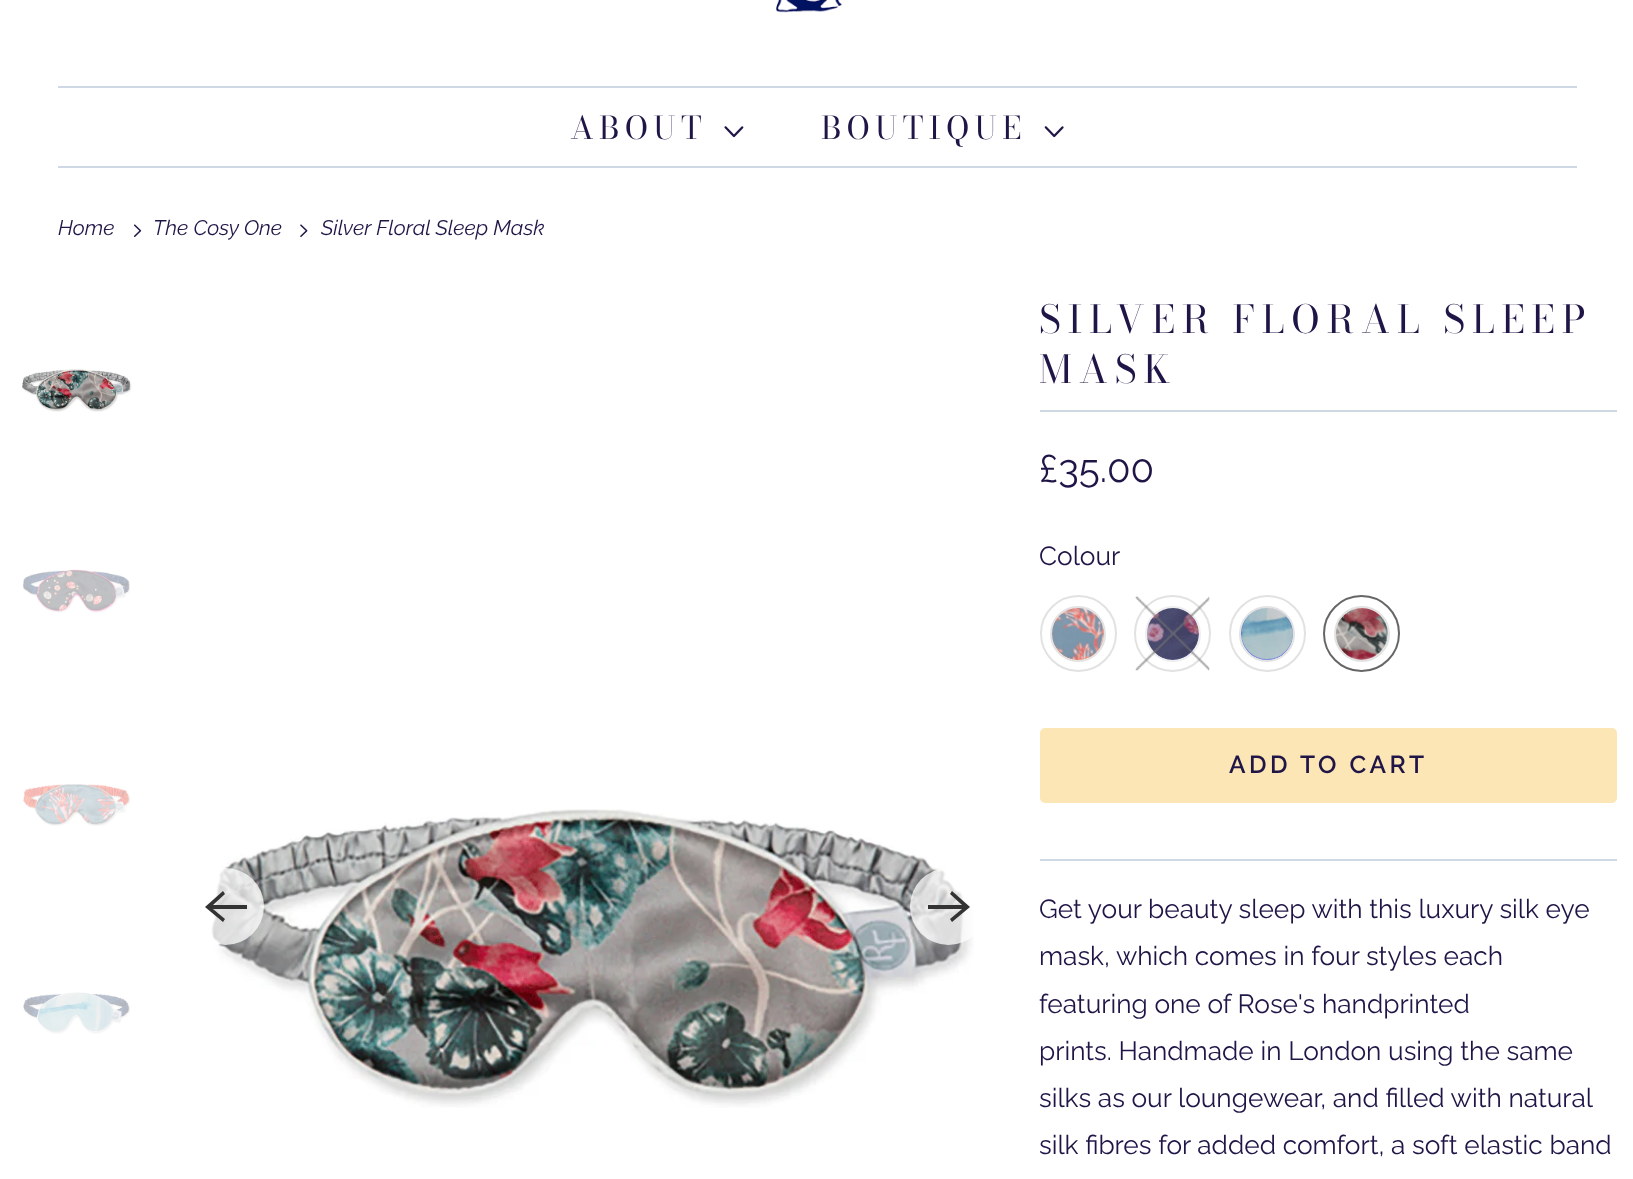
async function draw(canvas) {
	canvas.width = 1633;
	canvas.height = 1179;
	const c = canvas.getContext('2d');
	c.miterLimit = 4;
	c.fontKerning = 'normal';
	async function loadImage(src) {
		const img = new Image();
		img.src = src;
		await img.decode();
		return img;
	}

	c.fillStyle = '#fff';
	c.fillRect(0, 0, 1633, 1179);
	c.drawImage(await loadImage('img1.png'), 776, 0, 66, 13);
	c.fillStyle = '#ced9e5';
	c.fillRect(58, 86, 1519, 2);
	c.fillRect(58, 166, 1519, 2);
	c.letterSpacing = '5.25px';
	c.font = '31.5px Bodoni Moda';
	c.fillStyle = '#201547';
	c.fillText('ABOUT', 570, 139);
	c.drawImage(await loadImage('img2.png'), 724, 126, 20, 12);
	c.fillText('BOUTIQUE', 821, 139);
	c.drawImage(await loadImage('img3.png'), 1044, 126, 20, 12);
	c.letterSpacing = '0px';
	c.font = 'italic 21px Raleway';
	c.fillText('Home', 58, 235);
	c.drawImage(await loadImage('img4.png'), 133, 224, 9, 13);
	c.fillText('The Cosy One', 153, 235);
	c.drawImage(await loadImage('img5.png'), 300, 224, 8, 13);
	c.fillText('Silver Floral Sleep Mask', 321, 235);
	c.drawImage(await loadImage('img6.png'), 22, 369, 110, 43);
	c.drawImage(await loadImage('img7.png'), 23, 569, 107, 44);
	c.drawImage(await loadImage('img8.png'), 23, 784, 107, 42);
	c.drawImage(await loadImage('img9.png'), 23, 992, 107, 42);
	c.drawImage(await loadImage('img10.png'), 211, 809, 763, 299);
	c.fillStyle = '#ffffffbf';
	c.beginPath();
	c.arc(225.5, 906.5, 38.5, 0, 2 * Math.PI);
	c.fill();
	c.fillStyle = '#333';
	c.beginPath();
	c.moveTo(247, 905);
	c.lineTo(213, 905);
	c.lineTo(225, 894);
	c.lineTo(223, 891);
	c.lineTo(205, 907);
	c.lineTo(223, 922);
	c.lineTo(225, 919);
	c.lineTo(213, 909);
	c.lineTo(247, 909);
	c.closePath();
	c.fill();
	c.fillStyle = '#ffffffbf';
	c.beginPath();
	c.arc(948.5, 906.5, 38.5, 0, 2 * Math.PI);
	c.fill();
	c.fillStyle = '#333';
	c.beginPath();
	c.moveTo(928, 909);
	c.lineTo(962, 909);
	c.lineTo(950, 919);
	c.lineTo(952, 922);
	c.lineTo(970, 907);
	c.lineTo(952, 891);
	c.lineTo(950, 894);
	c.lineTo(962, 905);
	c.lineTo(928, 905);
	c.closePath();
	c.fill();
	c.fillStyle = '#ced9e5';
	c.fillRect(1040, 410, 577, 2);
	c.letterSpacing = '7px';
	c.font = '38.5px "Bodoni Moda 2"';
	c.fillStyle = '#201547';
	c.fillText('SILVER FLORAL SLEEP', 1039, 333);
	c.fillText('MASK', 1039, 383);
	c.letterSpacing = '0px';
	c.font = '38.5px Raleway';
	c.fillText('£35.00', 1039, 482);
	c.font = '26.25px Raleway';
	c.fillText('Colour', 1039, 565);
	c.beginPath();
	c.arc(1078.5, 633.5, 37.5, 0, 2 * Math.PI);
	c.strokeStyle = '#e2e2e2';
	c.lineWidth = 2;
	c.stroke();
	c.fillStyle = '#ff7f50';
	c.beginPath();
	c.roundRect(1052, 607, 52, 53, 26);
	c.fill();
	c.drawImage(await loadImage('img11.png'), 1052, 606, 52, 54);
	c.beginPath();
	c.arc(1078, 634, 27, 0, 2 * Math.PI);
	c.stroke();
	c.beginPath();
	c.arc(1172.5, 633.5, 37.5, 0, 2 * Math.PI);
	c.stroke();
	c.fillStyle = '#6666b3';
	c.beginPath();
	c.arc(1172.5, 633.5, 26.5, 0, 2 * Math.PI);
	c.fill();
	c.drawImage(await loadImage('img12.png'), 1146, 606, 53, 54);
	c.beginPath();
	c.arc(1173, 634, 27, 0, 2 * Math.PI);
	c.strokeStyle = '#eee';
	c.stroke();
	c.drawImage(await loadImage('img13.png'), 1135, 596, 75, 75);
	c.beginPath();
	c.arc(1267.5, 633.5, 37.5, 0, 2 * Math.PI);
	c.strokeStyle = '#e2e2e2';
	c.stroke();
	c.fillStyle = '#00f';
	c.beginPath();
	c.roundRect(1241, 607, 52, 53, 26);
	c.fill();
	c.drawImage(await loadImage('img14.png'), 1241, 606, 52, 54);
	c.beginPath();
	c.arc(1267, 634, 27, 0, 2 * Math.PI);
	c.stroke();
	c.beginPath();
	c.arc(1361.5, 633.5, 37.5, 0, 2 * Math.PI);
	c.strokeStyle = '#666';
	c.stroke();
	c.drawImage(await loadImage('img15.png'), 1334, 606, 54, 54);
	c.beginPath();
	c.arc(1362, 634, 27, 0, 2 * Math.PI);
	c.strokeStyle = '#e2e2e2';
	c.stroke();
	c.fillStyle = '#fce6b5';
	c.beginPath();
	c.roundRect(1041, 729, 575, 73, 4);
	c.fill();
	c.strokeStyle = '#fce6b5';
	c.stroke();
	c.letterSpacing = '3.5px';
	c.font = '600 24.5px Raleway';
	c.fillStyle = '#201547';
	c.fillText('ADD TO CART', 1229, 773);
	c.fillStyle = '#ced9e5';
	c.fillRect(1040, 859, 577, 2);
	c.letterSpacing = '0px';
	c.font = '26.25px Raleway';
	c.fillStyle = '#201547';
	for (const [text, x, y] of [
		['Get your beauty sleep with this luxury silk eye', 1039, 918],
		['mask, which comes in four styles each', 1039, 965],
		['featuring one of Rose\'s handprinted', 1039, 1013],
		['prints. Handmade in London using the same', 1039, 1060],
		['silks as our loungewear, and filled with natural', 1039, 1107],
		['silk fibres for added comfort, a soft elastic band', 1039, 1154],
	]) {
		c.fillText(text, x, y);
	}
}

draw(document.querySelector('canvas'));
